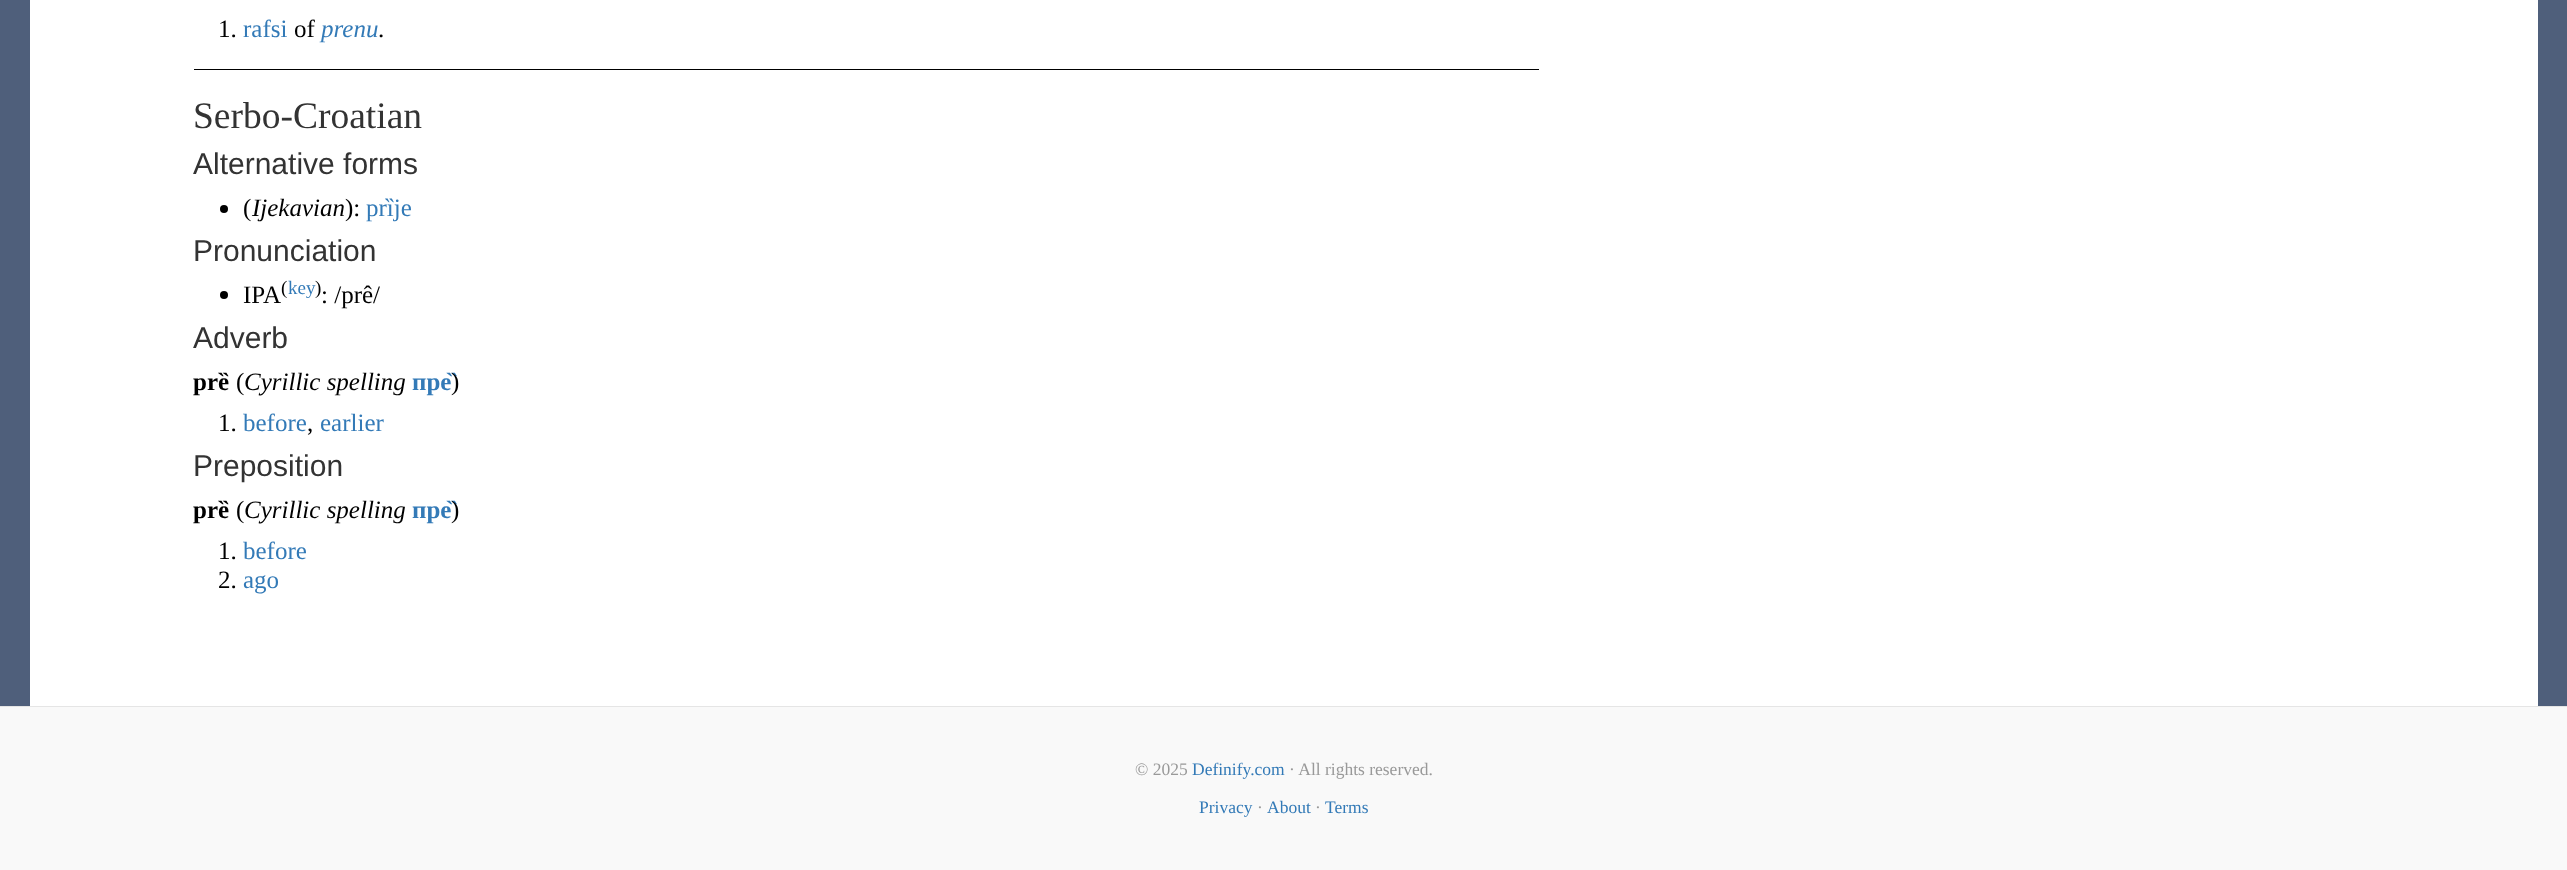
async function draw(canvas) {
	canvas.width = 2567;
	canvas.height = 870;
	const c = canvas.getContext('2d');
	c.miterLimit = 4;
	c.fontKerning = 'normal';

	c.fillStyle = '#4f5f7b';
	c.fillRect(0, 0, 2567, 870);
	c.fillStyle = '#fff';
	c.fillRect(30, 0, 2508, 706);
	c.font = '25px Liberation Serif';
	c.fillStyle = '#000';
	c.fillText('1.', 218, 37);
	c.fillStyle = '#337ab7';
	c.fillText('rafsi', 243, 37);
	c.fillStyle = '#000';
	c.fillText('of', 294, 37);
	c.font = 'italic 25px Liberation Serif';
	c.fillStyle = '#337ab7';
	c.fillText('prenu', 321, 37);
	c.font = '25px Liberation Serif';
	c.fillStyle = '#000';
	c.fillText('.', 378, 37);
	c.fillRect(194, 69, 1345, 1);
	c.font = '37.5px Liberation Serif';
	c.fillStyle = '#333';
	c.fillText('Serbo-Croatian', 193, 128);
	c.font = '30px Liberation Sans';
	c.fillText('Alternative forms', 193, 174);
	c.fillStyle = '#000';
	c.beginPath();
	c.arc(224, 209, 4, 0, 2 * Math.PI);
	c.fill();
	c.font = '25px Liberation Serif';
	c.fillText('(', 243, 216);
	c.font = 'italic 25px Liberation Serif';
	c.fillText('Ijekavian', 252, 216);
	c.font = '25px Liberation Serif';
	c.fillText('):', 345, 216);
	c.fillStyle = '#337ab7';
	c.fillText('prȉje', 366, 216);
	c.font = '30px Liberation Sans';
	c.fillStyle = '#333';
	c.fillText('Pronunciation', 193, 261);
	c.fillStyle = '#000';
	c.beginPath();
	c.arc(224, 295, 4, 0, 2 * Math.PI);
	c.fill();
	c.font = '25px Liberation Serif';
	c.fillText('IPA', 243, 303);
	c.font = '19px Liberation Serif';
	c.fillText('(', 281, 294);
	c.fillStyle = '#337ab7';
	c.fillText('key', 288, 294);
	c.fillStyle = '#000';
	c.fillText(')', 315, 294);
	c.font = '25px Liberation Serif';
	c.fillText(': /prê/', 321, 303);
	c.font = '30px Liberation Sans';
	c.fillStyle = '#333';
	c.fillText('Adverb', 193, 348);
	c.font = 'bold 25px Liberation Serif';
	c.fillStyle = '#000';
	c.fillText('prȅ', 193, 390);
	c.font = '25px Liberation Serif';
	c.fillText('(', 236, 390);
	c.font = 'italic 25px Liberation Serif';
	c.fillText('Cyrillic spelling', 244, 390);
	c.font = 'bold 25px Liberation Serif';
	c.fillStyle = '#337ab7';
	c.fillText('пре̏', 412, 390);
	c.font = '25px Liberation Serif';
	c.fillStyle = '#000';
	c.fillText(')', 451, 390);
	c.fillText('1.', 218, 431);
	c.fillStyle = '#337ab7';
	c.fillText('before', 243, 431);
	c.fillStyle = '#000';
	c.fillText(',', 307, 431);
	c.fillStyle = '#337ab7';
	c.fillText('earlier', 320, 431);
	c.font = '30px Liberation Sans';
	c.fillStyle = '#333';
	c.fillText('Preposition', 193, 476);
	c.font = 'bold 25px Liberation Serif';
	c.fillStyle = '#000';
	c.fillText('prȅ', 193, 518);
	c.font = '25px Liberation Serif';
	c.fillText('(', 236, 518);
	c.font = 'italic 25px Liberation Serif';
	c.fillText('Cyrillic spelling', 244, 518);
	c.font = 'bold 25px Liberation Serif';
	c.fillStyle = '#337ab7';
	c.fillText('пре̏', 412, 518);
	c.font = '25px Liberation Serif';
	c.fillStyle = '#000';
	c.fillText(')', 451, 518);
	c.fillText('1.', 218, 559);
	c.fillStyle = '#337ab7';
	c.fillText('before', 243, 559);
	c.fillStyle = '#000';
	c.fillText('2.', 218, 588);
	c.fillStyle = '#337ab7';
	c.fillText('ago', 243, 588);
	c.fillStyle = '#f9f9f9';
	c.fillRect(0, 707, 2567, 163);
	c.fillStyle = '#e5e5e5';
	c.fillRect(0, 706, 2567, 1);
	c.font = '17.5px Liberation Serif';
	c.fillStyle = '#999';
	c.fillText('© 2025', 1135, 775);
	c.fillStyle = '#337ab7';
	c.fillText('Definify.com', 1192, 775);
	c.fillStyle = '#999';
	c.fillText('· All rights reserved.', 1289, 775);
	c.fillStyle = '#337ab7';
	c.fillText('Privacy', 1199, 813);
	c.fillStyle = '#999';
	c.fillText('·', 1257, 813);
	c.fillStyle = '#337ab7';
	c.fillText('About', 1267, 813);
	c.fillStyle = '#999';
	c.fillText('·', 1315, 813);
	c.fillStyle = '#337ab7';
	c.fillText('Terms', 1325, 813);
}

draw(document.querySelector('canvas'));
